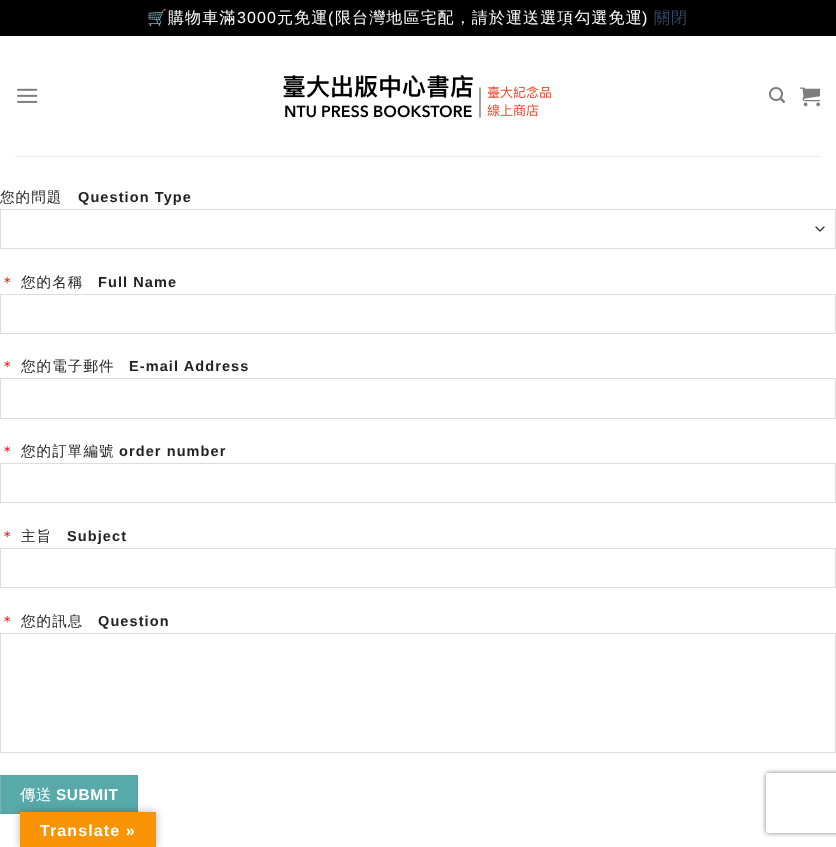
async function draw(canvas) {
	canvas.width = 836;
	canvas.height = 847;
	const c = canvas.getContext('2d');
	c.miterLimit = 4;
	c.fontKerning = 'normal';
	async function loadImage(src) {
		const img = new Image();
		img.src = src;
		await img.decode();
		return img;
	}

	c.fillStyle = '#000';
	c.fillRect(0, 0, 836, 847);
	c.letterSpacing = '1.1px';
	c.font = '16px Noto Color Emoji';
	c.fillStyle = '#fff';
	c.fillText('🛒', 147, 23);
	c.font = '500 16px WenQuanYi Zen Hei';
	c.fillText('購物車滿', 168, 23);
	c.font = '16px Liberation Sans';
	c.fillText('3000', 237, 23);
	c.font = '500 16px WenQuanYi Zen Hei';
	c.fillText('元免運', 277, 23);
	c.font = '16px Liberation Sans';
	c.fillText('(', 328, 23);
	c.font = '500 16px WenQuanYi Zen Hei';
	c.fillText('限台灣地區宅配，請於運送選項勾選免運', 335, 23);
	c.font = '16px Liberation Sans';
	c.fillText(')', 642, 23);
	c.font = '500 16px WenQuanYi Zen Hei';
	c.fillStyle = '#334862';
	c.fillText('關閉', 654, 23);
	c.fillStyle = '#fff';
	c.fillRect(0, 36, 836, 811);
	c.drawImage(await loadImage('img1.png'), 17, 88, 21, 15);
	c.drawImage(await loadImage('img2.png'), 283, 75, 268, 43);
	c.drawImage(await loadImage('img3.png'), 769, 87, 16, 16);
	c.drawImage(await loadImage('img4.png'), 800, 87, 20, 20);
	c.fillStyle = '#eee';
	c.fillRect(15, 156, 806, 1);
	c.font = '500 14.5px WenQuanYi Zen Hei';
	c.fillStyle = '#222';
	c.fillText('您的問題', 0, 202);
	c.font = 'bold 14.5px Liberation Sans';
	c.fillText('Question Type', 78, 202);
	c.beginPath();
	c.moveTo(816, 227);
	c.lineTo(820, 231);
	c.lineTo(824, 227);
	c.strokeStyle = '#333';
	c.lineWidth = 1.3;
	c.lineCap = 'round';
	c.lineJoin = 'round';
	c.stroke();
	c.strokeStyle = '#ddd';
	c.lineWidth = 1;
	c.lineJoin = 'miter';
	c.strokeRect(0.5, 209.5, 835, 39);
	c.font = '500 14.5px WenQuanYi Zen Hei';
	c.fillStyle = '#f00';
	c.fillText('＊', 0, 287);
	c.fillStyle = '#222';
	c.fillText('您的名稱', 21, 287);
	c.font = 'bold 14.5px Liberation Sans';
	c.fillText('Full Name', 98, 287);
	c.strokeRect(0.5, 294.5, 835, 39);
	c.font = '500 14.5px WenQuanYi Zen Hei';
	c.fillStyle = '#f00';
	c.fillText('＊', 0, 371);
	c.fillStyle = '#222';
	c.fillText('您的電子郵件', 21, 371);
	c.font = 'bold 14.5px Liberation Sans';
	c.fillText('E-mail Address', 129, 371);
	c.strokeRect(0.5, 378.5, 835, 40);
	c.font = '500 14.5px WenQuanYi Zen Hei';
	c.fillStyle = '#f00';
	c.fillText('＊', 0, 456);
	c.fillStyle = '#222';
	c.fillText('您的訂單編號', 21, 456);
	c.font = 'bold 14.5px Liberation Sans';
	c.fillText('order number', 119, 456);
	c.strokeRect(0.5, 463.5, 835, 39);
	c.font = '500 14.5px WenQuanYi Zen Hei';
	c.fillStyle = '#f00';
	c.fillText('＊', 0, 541);
	c.fillStyle = '#222';
	c.fillText('主旨', 21, 541);
	c.font = 'bold 14.5px Liberation Sans';
	c.fillText('Subject', 67, 541);
	c.strokeRect(0.5, 548.5, 835, 39);
	c.font = '500 14.5px WenQuanYi Zen Hei';
	c.fillStyle = '#f00';
	c.fillText('＊', 0, 626);
	c.fillStyle = '#222';
	c.fillText('您的訊息', 21, 626);
	c.font = 'bold 14.5px Liberation Sans';
	c.fillText('Question', 98, 626);
	c.strokeRect(0.5, 633.5, 835, 119);
	c.fillStyle = '#58aaaa';
	c.beginPath();
	c.rect(0.5, 775.5, 137, 38);
	c.fill();
	c.strokeStyle = '#54a2a2';
	c.stroke();
	c.letterSpacing = '0.5px';
	c.font = '500 15.5px WenQuanYi Zen Hei';
	c.fillStyle = '#fff';
	c.fillText('傳送', 20, 800);
	c.font = 'bold 15.5px Liberation Sans';
	c.fillText('SUBMIT', 56, 800);
	c.save();
	c.beginPath();
	c.moveTo(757, 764);
	c.lineTo(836, 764);
	c.lineTo(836, 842);
	c.lineTo(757, 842);
	c.closePath();
	c.moveTo(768, 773);
	c.lineTo(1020, 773);
	c.bezierCurveTo(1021, 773, 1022, 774, 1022, 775);
	c.lineTo(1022, 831);
	c.bezierCurveTo(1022, 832, 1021, 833, 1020, 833);
	c.lineTo(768, 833);
	c.bezierCurveTo(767, 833, 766, 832, 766, 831);
	c.lineTo(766, 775);
	c.bezierCurveTo(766, 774, 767, 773, 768, 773);
	c.closePath();
	c.clip('evenodd');
	c.fillStyle = '#808080';
	c.filter = 'blur(2.5px)';
	c.beginPath();
	c.roundRect(766, 773, 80, 60, 2);
	c.fill();
	c.filter = 'none';
	c.restore();
	c.fillStyle = '#0000004d';
	c.filter = 'blur(4.5px)';
	c.beginPath();
	c.rect(20, 812, 136, 35);
	c.fill();
	c.filter = 'none';
	c.fillStyle = '#f89406';
	c.fillRect(20, 812, 136, 35);
	c.letterSpacing = '1.1px';
	c.font = 'bold 16px Liberation Sans';
	c.fillStyle = '#fff';
	c.fillText('Translate »', 40, 836);
}

draw(document.querySelector('canvas'));
